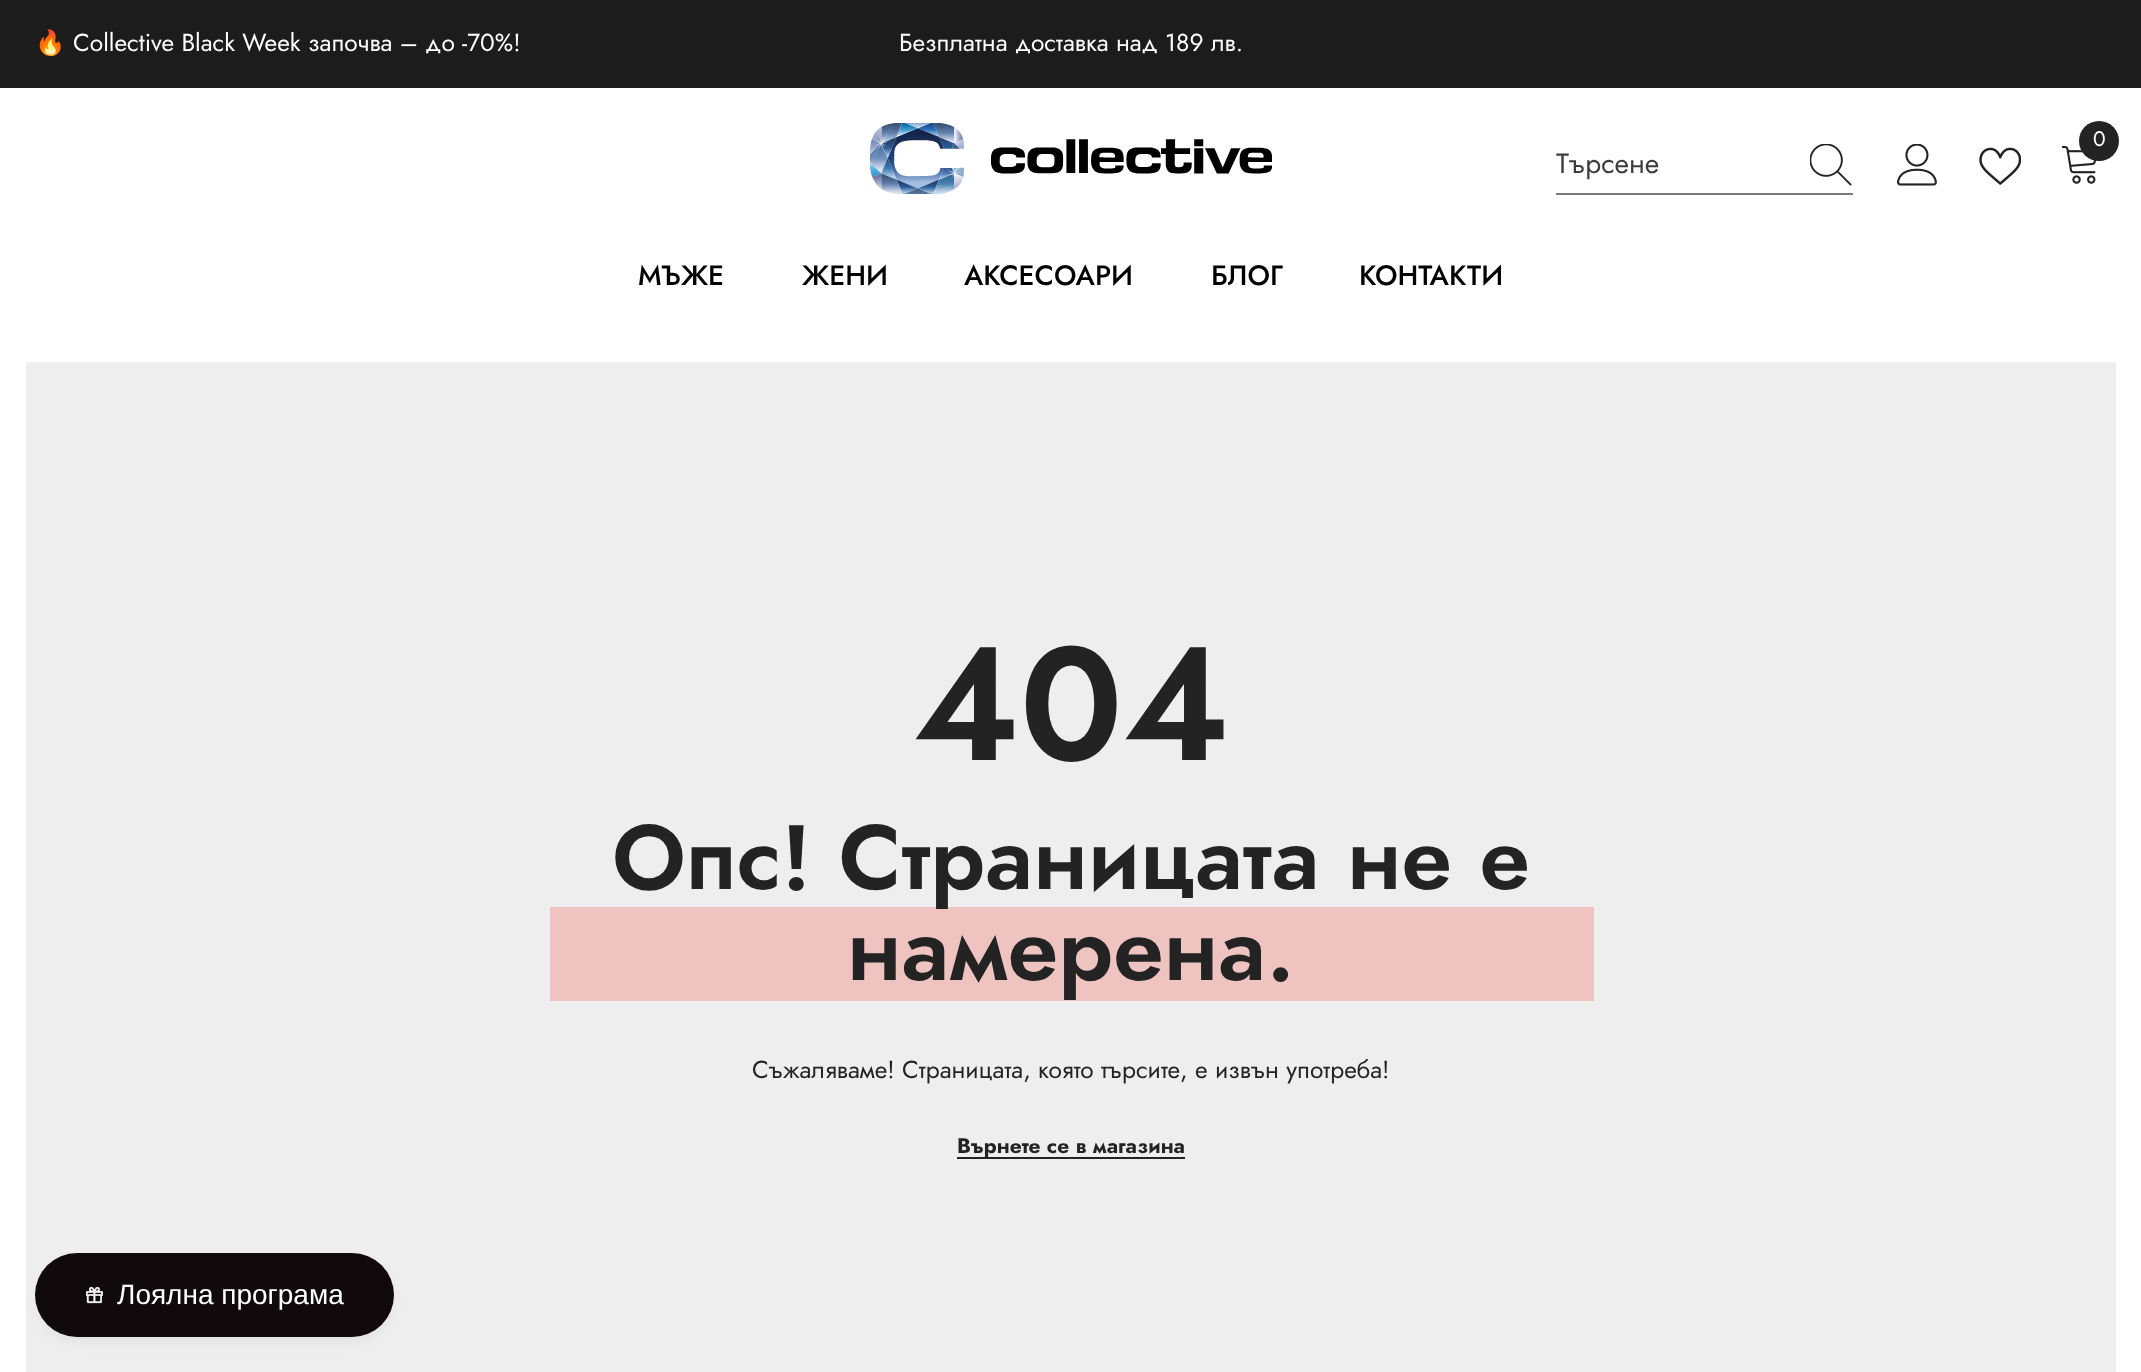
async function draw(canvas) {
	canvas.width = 2141;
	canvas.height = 1372;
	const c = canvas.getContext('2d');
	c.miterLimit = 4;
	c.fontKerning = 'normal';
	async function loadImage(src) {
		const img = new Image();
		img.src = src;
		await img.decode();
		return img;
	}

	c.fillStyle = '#fff';
	c.fillRect(0, 0, 2141, 1372);
	c.fillStyle = '#1c1c1c';
	c.fillRect(0, 0, 2141, 88);
	c.font = '24.5px Noto Color Emoji';
	c.fillStyle = '#fff';
	c.fillText('🔥', 35, 51);
	c.font = '24.5px Jost';
	c.fillText('Collective Black Week започва – до -70%!', 73, 51);
	c.fillText('Безплатна доставка над 189 лв.', 899, 51);
	c.drawImage(await loadImage('img1.png'), 870, 123, 402, 71);
	c.drawImage(await loadImage('img2.png'), 2061, 145, 36, 39);
	c.fillStyle = '#232323';
	c.beginPath();
	c.arc(2099, 141, 20, 0, 2 * Math.PI);
	c.fill();
	c.font = '21px Jost';
	c.fillStyle = '#fff';
	c.fillText('0', 2093, 146);
	c.drawImage(await loadImage('img3.png'), 1897, 144, 40, 42);
	c.drawImage(await loadImage('img4.png'), 1979, 147, 42, 38);
	c.fillStyle = '#7b7b7b';
	c.fillRect(1556, 193, 297, 2);
	c.font = '28px Jost';
	c.fillStyle = '#3c3c3c';
	c.fillText('Търсене', 1556, 173);
	c.drawImage(await loadImage('img5.png'), 1810, 144, 42, 42);
	c.font = '500 28px Jost';
	c.fillStyle = '#000';
	for (const [text, x, y] of [
		['МЪЖЕ', 638, 285],
		['ЖЕНИ', 802, 285],
		['АКСЕСОАРИ', 964, 285],
		['БЛОГ', 1211, 285],
		['КОНТАКТИ', 1359, 285],
	]) {
		c.fillText(text, x, y);
	}
	c.fillStyle = '#eee';
	c.fillRect(26, 362, 2090, 1010);
	c.font = '600 161px Jost';
	c.fillStyle = '#232323';
	c.fillText('404', 913, 760);
	c.fillStyle = '#efc3c0';
	c.fillRect(550, 907, 1044, 94);
	c.font = '600 91px Jost';
	c.fillStyle = '#232323';
	c.fillText('Опс! Страницата не е', 612, 889);
	c.fillText('намерена.', 847, 980);
	c.font = '24.5px Jost';
	c.fillText('Съжаляваме! Страницата, която търсите, е извън употреба!', 752, 1078);
	c.fillRect(957, 1157, 228, 2);
	c.font = 'bold 21px Jost';
	c.fillText('Върнете се в магазина', 957, 1153);
	c.fillStyle = '#44444414';
	c.filter = 'blur(7px)';
	c.beginPath();
	c.roundRect(39, 1264, 351, 77, 38.5);
	c.fill();
	c.filter = 'none';
	c.fillStyle = '#100a0d';
	c.beginPath();
	c.roundRect(35, 1253, 359, 84, 42);
	c.fill();
	c.drawImage(await loadImage('img6.png'), 86, 1286, 17, 18);
	c.font = '28px Liberation Sans';
	c.fillStyle = '#fff';
	c.fillText('Лоялна програма', 117, 1304);
}

draw(document.querySelector('canvas'));
